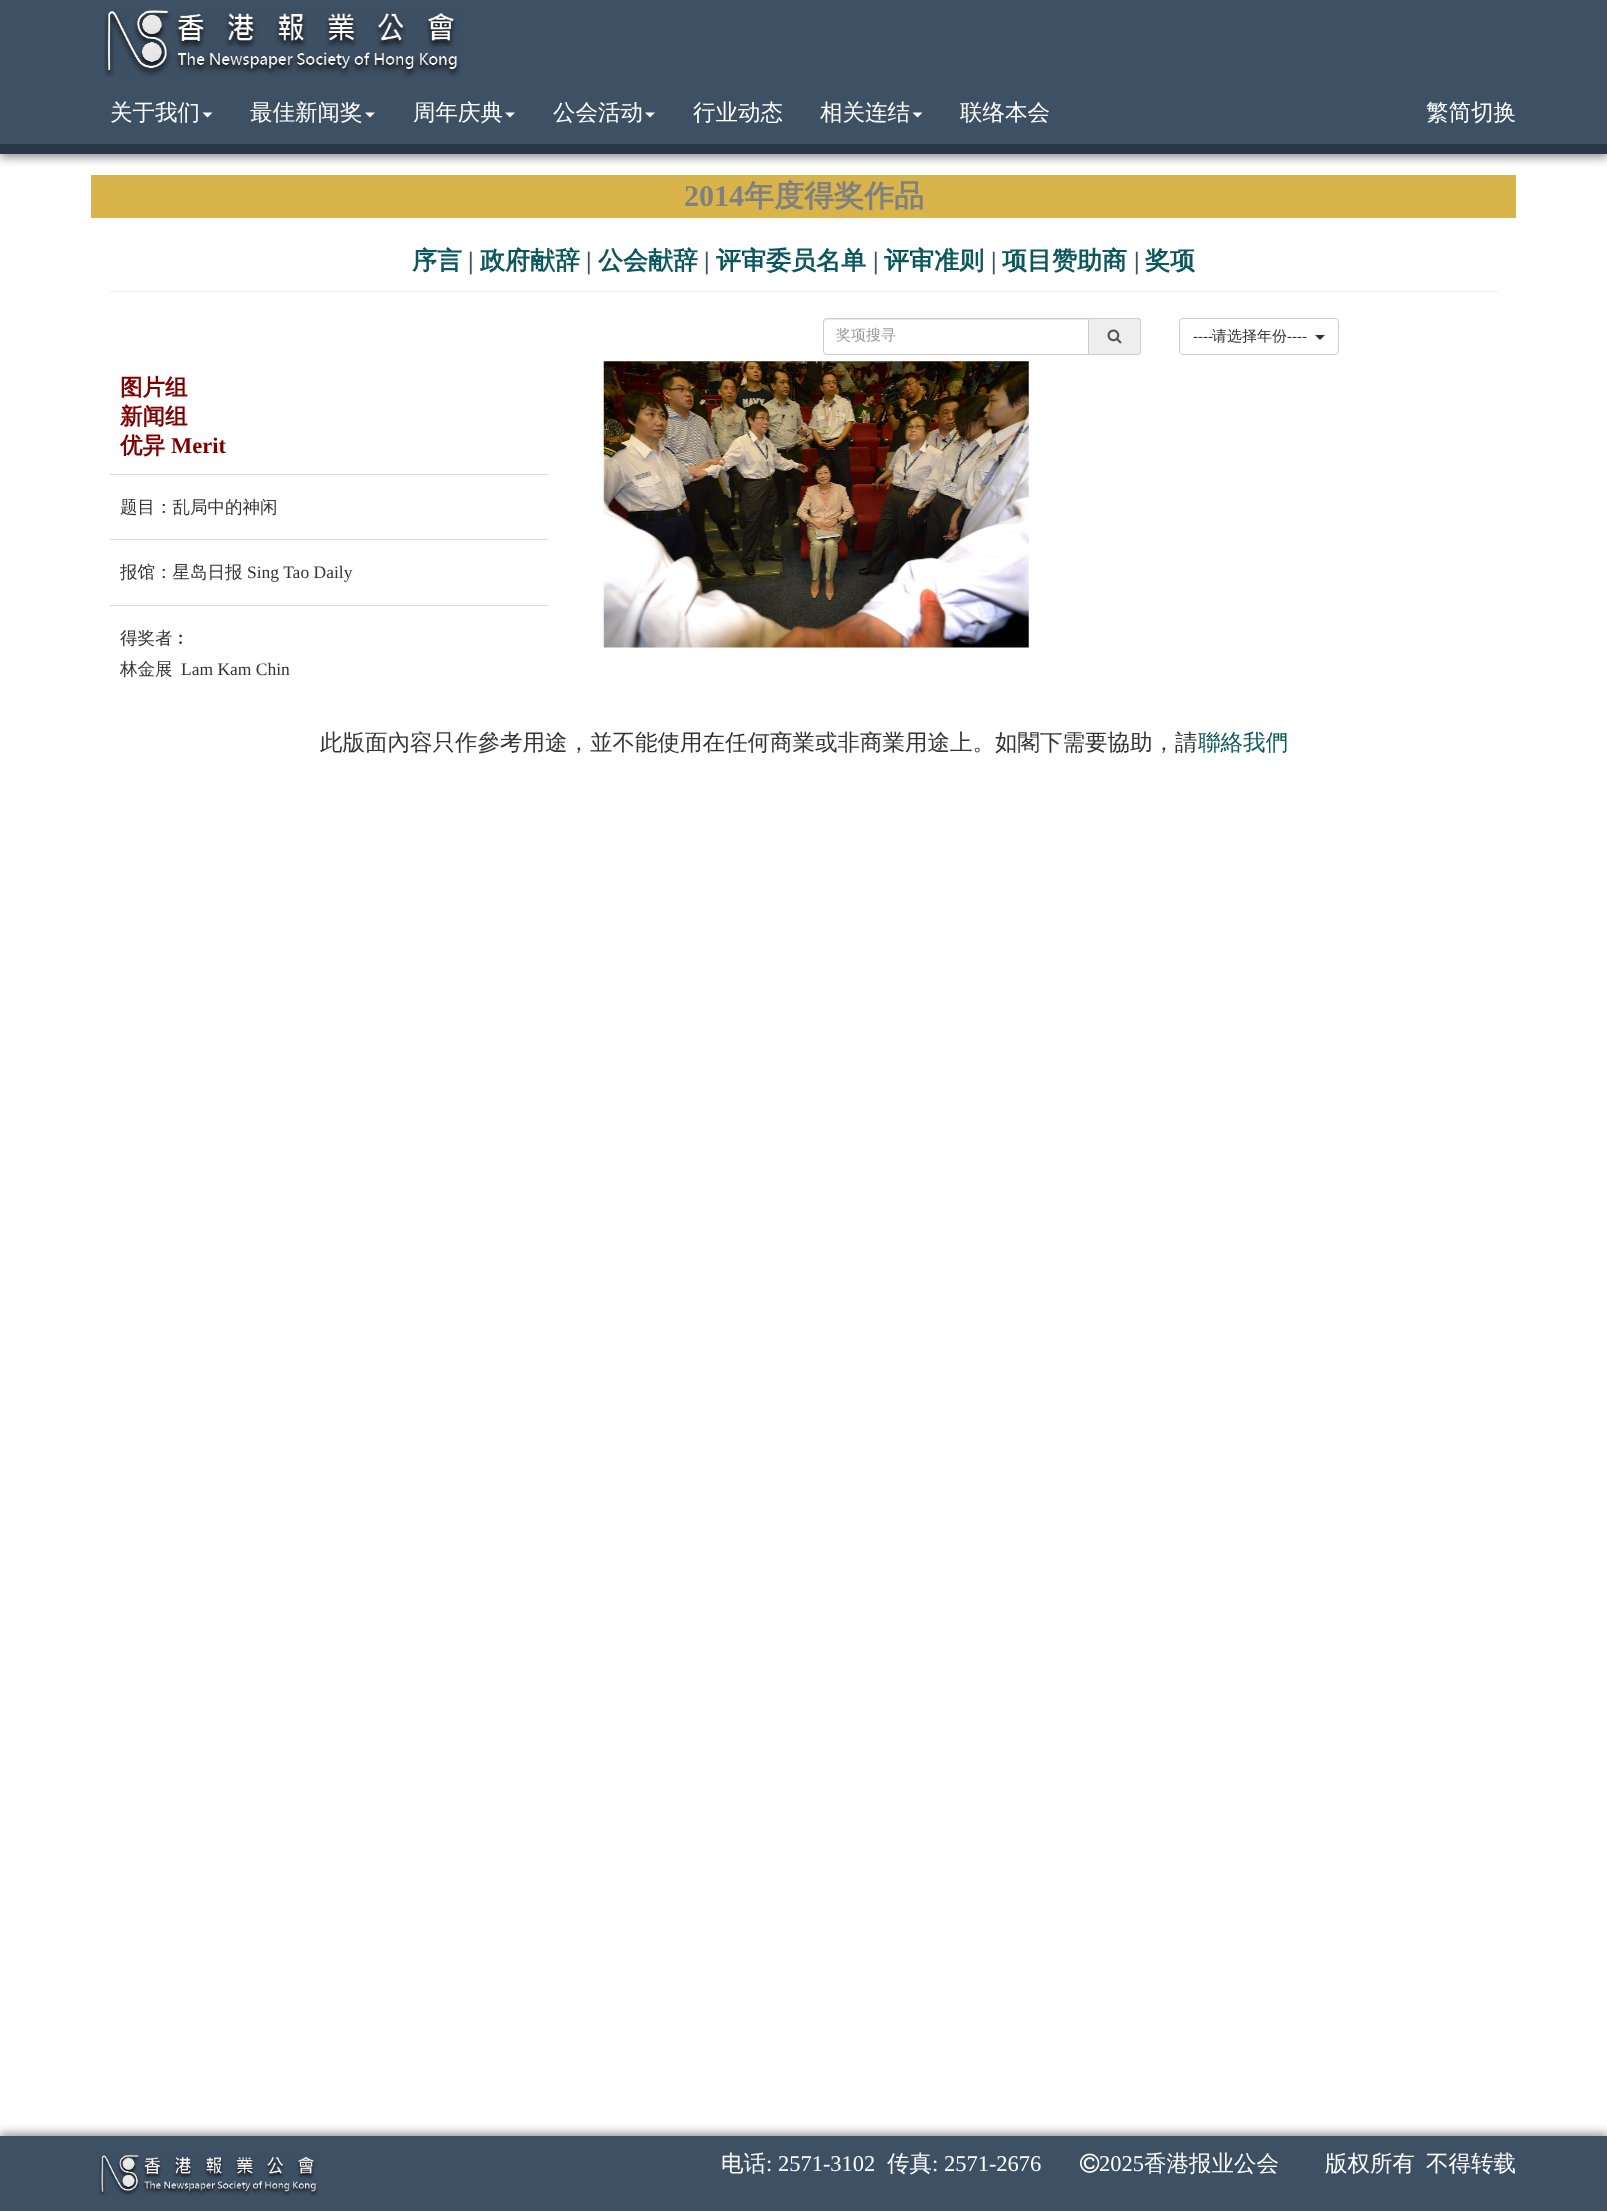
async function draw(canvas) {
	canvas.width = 1607;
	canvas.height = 2211;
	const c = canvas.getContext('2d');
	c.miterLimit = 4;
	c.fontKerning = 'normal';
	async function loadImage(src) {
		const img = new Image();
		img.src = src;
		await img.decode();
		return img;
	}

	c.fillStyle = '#fff';
	c.fillRect(0, 0, 1607, 2211);
	c.fillStyle = '#999';
	c.filter = 'blur(5px)';
	c.beginPath();
	c.rect(0, 4, 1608, 154);
	c.fill();
	c.filter = 'none';
	c.fillStyle = '#3e5064';
	c.fillRect(0, 0, 1607, 144);
	c.fillStyle = '#2c3846';
	c.fillRect(0, 144, 1607, 10);
	c.drawImage(await loadImage('img1.png'), 104, 10, 357, 67);
	c.font = '500 22.5px WenQuanYi Zen Hei';
	c.fillStyle = '#fff';
	c.fillText('关于我们', 110, 120);
	c.beginPath();
	c.moveTo(202.5, 112.5);
	c.lineTo(212.5, 112.5);
	c.lineTo(207.5, 117.5);
	c.closePath();
	c.fill();
	c.fillText('最佳新闻奖', 250, 120);
	c.beginPath();
	c.moveTo(365, 112.5);
	c.lineTo(375, 112.5);
	c.lineTo(370, 117.5);
	c.closePath();
	c.fill();
	c.fillText('周年庆典', 413, 120);
	c.beginPath();
	c.moveTo(505, 112.5);
	c.lineTo(515, 112.5);
	c.lineTo(510, 117.5);
	c.closePath();
	c.fill();
	c.fillText('公会活动', 553, 120);
	c.beginPath();
	c.moveTo(645, 112.5);
	c.lineTo(655, 112.5);
	c.lineTo(650, 117.5);
	c.closePath();
	c.fill();
	c.fillText('行业动态', 693, 120);
	c.fillText('相关连结', 820, 120);
	c.beginPath();
	c.moveTo(912.5, 112.5);
	c.lineTo(922.5, 112.5);
	c.lineTo(917.5, 117.5);
	c.closePath();
	c.fill();
	c.fillText('联络本会', 960, 120);
	c.fillText('繁简切换', 1426, 120);
	c.fillStyle = '#d9b44b';
	c.fillRect(91, 175, 1425, 43);
	c.font = 'bold 30px Liberation Serif';
	c.fillStyle = '#808080';
	c.fillText('2014', 684, 206);
	c.font = 'bold 30px WenQuanYi Zen Hei';
	c.fillText('年度得奖作品', 744, 206);
	c.font = 'bold 25px WenQuanYi Zen Hei';
	c.fillStyle = '#0b575d';
	c.fillText('序言', 412, 269);
	c.font = 'bold 25px Liberation Serif';
	c.fillStyle = '#3e5064';
	c.fillText('|', 468, 269);
	c.font = 'bold 25px WenQuanYi Zen Hei';
	c.fillStyle = '#0b575d';
	c.fillText('政府献辞', 480, 269);
	c.font = 'bold 25px Liberation Serif';
	c.fillStyle = '#3e5064';
	c.fillText('|', 586, 269);
	c.font = 'bold 25px WenQuanYi Zen Hei';
	c.fillStyle = '#0b575d';
	c.fillText('公会献辞', 598, 269);
	c.font = 'bold 25px Liberation Serif';
	c.fillStyle = '#3e5064';
	c.fillText('|', 704, 269);
	c.font = 'bold 25px WenQuanYi Zen Hei';
	c.fillStyle = '#0b575d';
	c.fillText('评审委员名单', 716, 269);
	c.font = 'bold 25px Liberation Serif';
	c.fillStyle = '#3e5064';
	c.fillText('|', 873, 269);
	c.font = 'bold 25px WenQuanYi Zen Hei';
	c.fillStyle = '#0b575d';
	c.fillText('评审准则', 884, 269);
	c.font = 'bold 25px Liberation Serif';
	c.fillStyle = '#3e5064';
	c.fillText('|', 991, 269);
	c.font = 'bold 25px WenQuanYi Zen Hei';
	c.fillStyle = '#0b575d';
	c.fillText('项目赞助商', 1002, 269);
	c.font = 'bold 25px Liberation Serif';
	c.fillStyle = '#3e5064';
	c.fillText('|', 1134, 269);
	c.font = 'bold 25px WenQuanYi Zen Hei';
	c.fillStyle = '#0b575d';
	c.fillText('奖项', 1145, 269);
	c.fillStyle = '#eee';
	c.fillRect(110, 291, 1388, 1);
	c.fillStyle = '#ececec';
	c.beginPath();
	c.moveTo(826, 320);
	c.lineTo(1088, 320);
	c.lineTo(1088, 319);
	c.lineTo(826, 319);
	c.bezierCurveTo(825, 319, 824, 320, 824, 322);
	c.bezierCurveTo(824, 321, 825, 320, 826, 320);
	c.closePath();
	c.fill();
	c.beginPath();
	c.roundRect(823.5, 318.5, 265, 36, [3.5, 0, 0, 3.5]);
	c.strokeStyle = '#ccc';
	c.stroke();
	c.font = '500 15px WenQuanYi Zen Hei';
	c.fillStyle = '#999';
	c.fillText('奖项搜寻', 836, 340);
	c.fillStyle = '#eee';
	c.beginPath();
	c.roundRect(1089, 318, 52, 37, [0, 4, 4, 0]);
	c.fill();
	c.fillStyle = '#ccc';
	c.beginPath();
	c.moveTo(1089, 318);
	c.lineTo(1138, 318);
	c.bezierCurveTo(1140, 318, 1141, 319, 1141, 321);
	c.lineTo(1141, 351);
	c.bezierCurveTo(1141, 353, 1140, 355, 1138, 355);
	c.lineTo(1089, 355);
	c.closePath();
	c.moveTo(1089, 319);
	c.lineTo(1138, 319);
	c.bezierCurveTo(1139, 319, 1140, 320, 1140, 321);
	c.lineTo(1140, 351);
	c.bezierCurveTo(1140, 353, 1139, 354, 1138, 354);
	c.lineTo(1089, 354);
	c.closePath();
	c.fill('evenodd');
	c.drawImage(await loadImage('img2.png'), 1107, 329, 15, 15);
	c.beginPath();
	c.roundRect(1179.5, 318.5, 159, 36, 3.5);
	c.stroke();
	c.font = '15px Liberation Serif';
	c.fillStyle = '#333';
	c.fillText('----', 1193, 341);
	c.font = '500 15px WenQuanYi Zen Hei';
	c.fillText('请选择年份', 1212, 341);
	c.font = '15px Liberation Serif';
	c.fillText('----', 1287, 341);
	c.beginPath();
	c.moveTo(1315, 335);
	c.lineTo(1325, 335);
	c.lineTo(1320, 340);
	c.closePath();
	c.fill();
	c.font = 'bold 22.5px WenQuanYi Zen Hei';
	c.fillStyle = '#800000';
	for (const [text, x, y] of [
		['图片组', 120, 395],
		['新闻组', 120, 424],
		['优异', 120, 453],
	]) {
		c.fillText(text, x, y);
	}
	c.font = 'bold 22.5px Liberation Serif';
	c.fillText('Merit', 171, 453);
	c.fillStyle = '#ddd';
	c.fillRect(110, 474, 439, 1);
	c.font = '500 17.5px WenQuanYi Zen Hei';
	c.fillStyle = '#333';
	c.fillText('题目：乱局中的神闲', 120, 513);
	c.fillStyle = '#ddd';
	c.fillRect(110, 539, 439, 1);
	c.fillStyle = '#333';
	c.fillText('报馆：星岛日报', 120, 578);
	c.font = '17.5px Liberation Serif';
	c.fillText('Sing Tao Daily', 247, 578);
	c.fillStyle = '#ddd';
	c.fillRect(110, 605, 439, 1);
	c.font = '500 17.5px WenQuanYi Zen Hei';
	c.fillStyle = '#333';
	c.fillText('得奖者︰', 120, 644);
	c.fillText('林金展', 120, 675);
	c.font = '17.5px Liberation Serif';
	c.fillText('Lam Kam Chin', 181, 675);
	c.drawImage(await loadImage('img3.png'), 603, 361, 426, 287);
	c.font = '500 22.5px WenQuanYi Zen Hei';
	c.fillText('此版面內容只作參考用途，並不能使用在任何商業或非商業用途上。如閣下需要協助，請', 320, 750);
	c.fillStyle = '#0b575d';
	c.fillText('聯絡我們', 1198, 750);
	c.fillStyle = '#999';
	c.filter = 'blur(5px)';
	c.beginPath();
	c.rect(0, 2133, 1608, 75);
	c.fill();
	c.filter = 'none';
	c.fillStyle = '#3e5064';
	c.fillRect(0, 2136, 1607, 75);
	c.drawImage(await loadImage('img4.png'), 99, 2154, 219, 42);
	c.fillStyle = '#fff';
	c.fillText('电话', 721, 2171);
	c.font = '22.5px Liberation Serif';
	c.fillText(': 2571-3102', 766, 2171);
	c.font = '500 22.5px WenQuanYi Zen Hei';
	c.fillText('传真', 887, 2171);
	c.font = '22.5px Liberation Serif';
	c.fillText(': 2571-2676', 932, 2171);
	c.drawImage(await loadImage('img5.png'), 1080, 2153, 20, 20);
	c.fillText('2025', 1099, 2171);
	c.font = '500 22.5px WenQuanYi Zen Hei';
	for (const [text, x, y] of [
		['香港报业公会', 1144, 2171],
		['版权所有', 1325, 2171],
		['不得转载', 1426, 2171],
	]) {
		c.fillText(text, x, y);
	}
}

draw(document.querySelector('canvas'));
